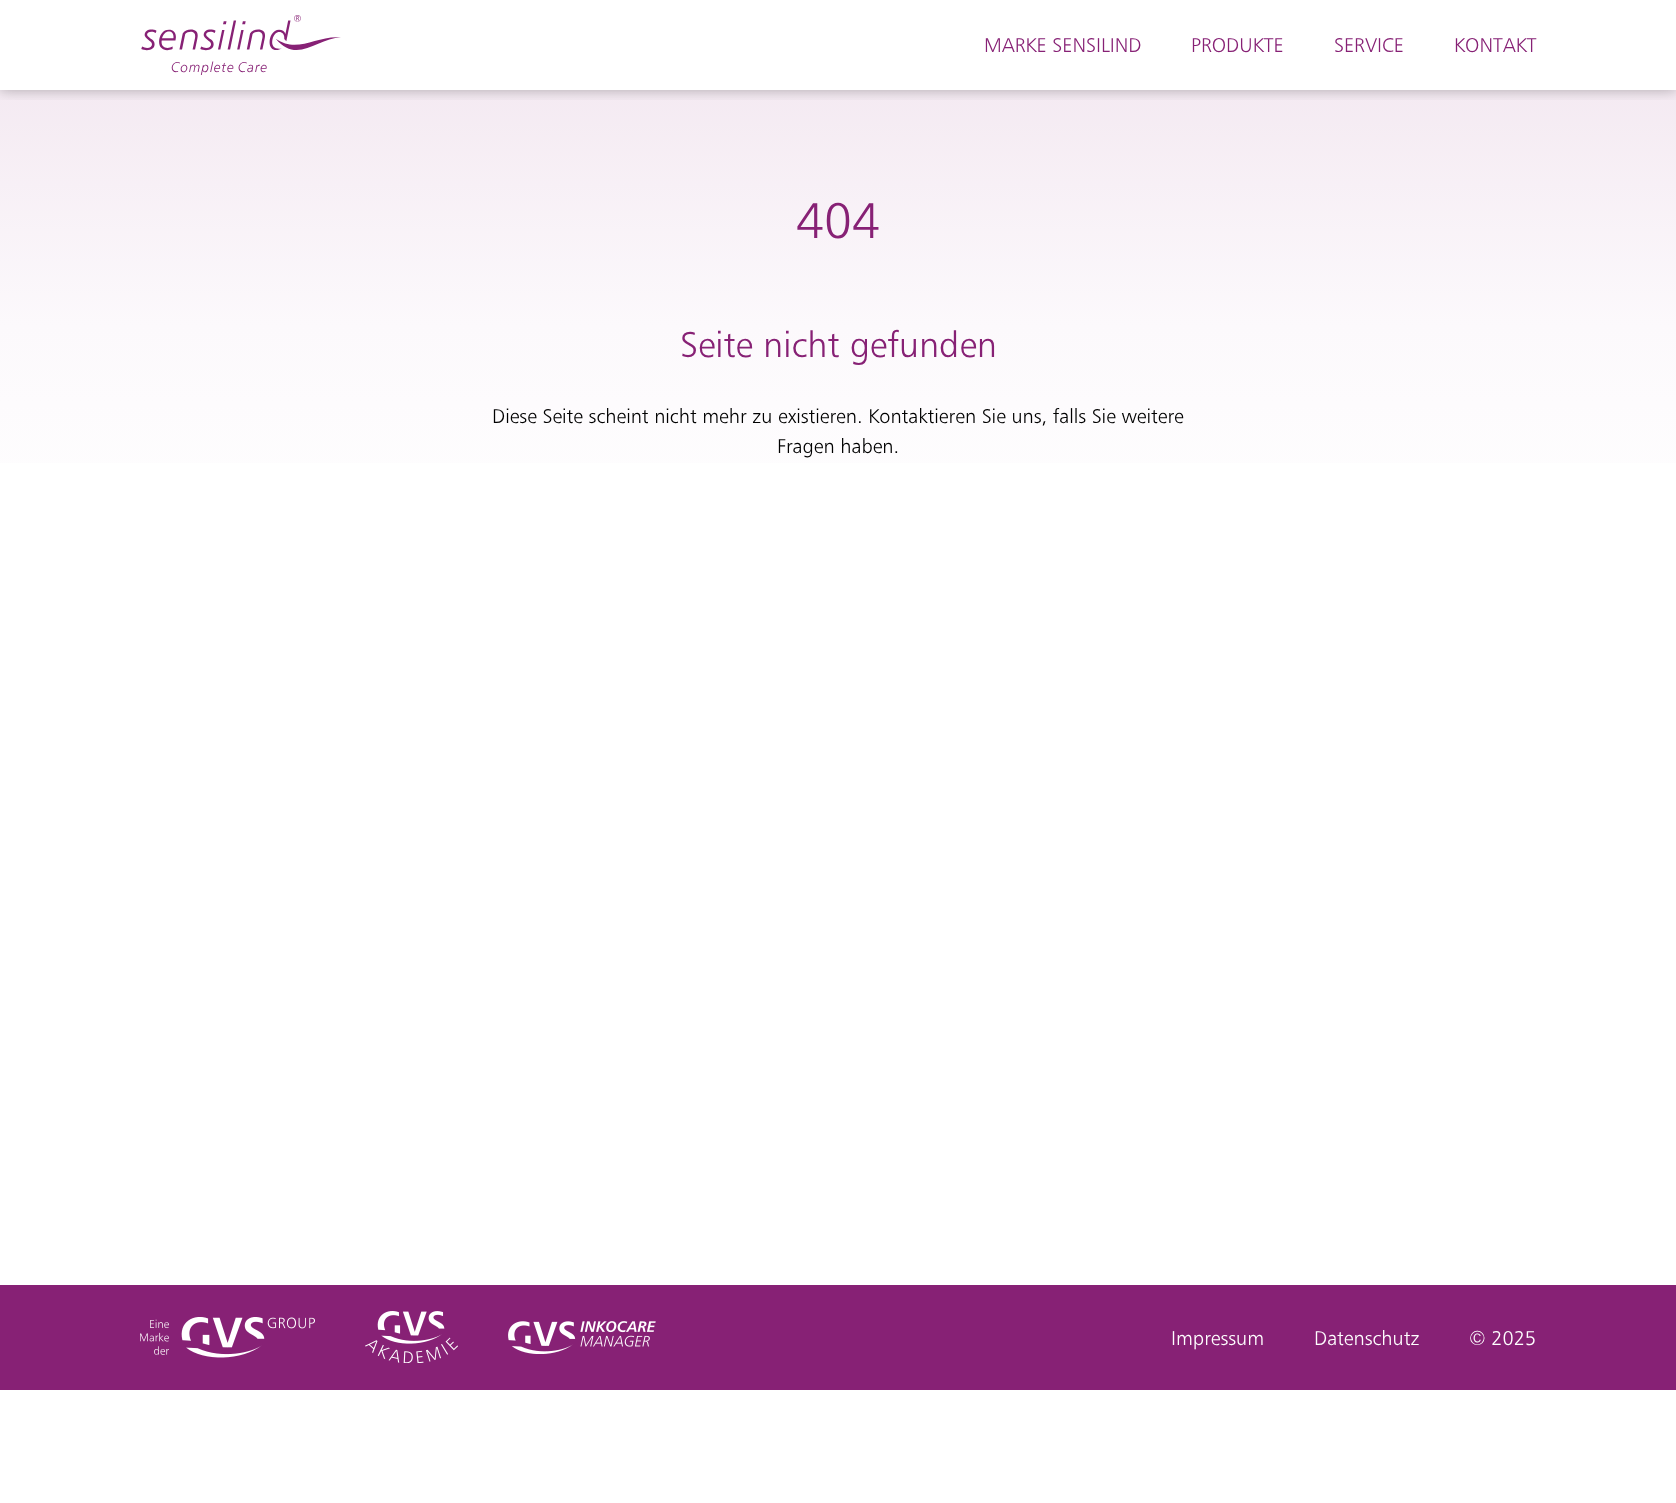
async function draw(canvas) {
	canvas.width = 1676;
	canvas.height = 1503;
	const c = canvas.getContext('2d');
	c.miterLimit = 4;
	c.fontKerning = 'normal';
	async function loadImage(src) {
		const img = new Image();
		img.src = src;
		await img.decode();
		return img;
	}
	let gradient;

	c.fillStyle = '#fff';
	c.fillRect(0, 0, 1676, 1503);
	gradient = c.createLinearGradient(549, 90, 549, 561);
	gradient.addColorStop(0, '#f4eaf2');
	gradient.addColorStop(0.5, '#fcf9fc');
	gradient.addColorStop(1, '#fff');
	c.fillStyle = gradient;
	c.fillRect(0, 90, 1676, 373);
	c.save();
	c.beginPath();
	c.rect(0, 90, 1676, 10);
	c.clip();
	c.fillStyle = '#0000004a';
	c.filter = 'blur(7px)';
	c.beginPath();
	c.rect(0, 0, 1676, 90);
	c.fill();
	c.filter = 'none';
	c.restore();
	c.drawImage(await loadImage('img1.png'), 141, 15, 200, 60);
	c.font = '300 20px "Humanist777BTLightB"';
	c.fillStyle = '#872175';
	for (const [text, x, y] of [
		['MARKE SENSILIND', 984, 52],
		['PRODUKTE', 1191, 52],
		['SERVICE', 1334, 52],
		['KONTAKT', 1454, 52],
	]) {
		c.fillText(text, x, y);
	}
	c.font = '300 50px "Humanist777BTLightB"';
	c.fillText('404', 796, 238);
	c.font = '300 36px "Humanist777BTLightB"';
	c.fillText('Seite nicht gefunden', 680, 357);
	c.font = '300 20px "Humanist777BTLightB"';
	c.fillStyle = '#000';
	c.fillText('Diese Seite scheint nicht mehr zu existieren. Kontaktieren Sie uns, falls Sie weitere', 492, 423);
	c.fillText('Fragen haben.', 777, 453);
	c.fillStyle = '#872175';
	c.fillRect(0, 1285, 1676, 105);
	c.drawImage(await loadImage('img2.png'), 140, 1317, 175, 41);
	c.drawImage(await loadImage('img3.png'), 365, 1311, 93, 52);
	c.drawImage(await loadImage('img4.png'), 508, 1321, 148, 33);
	c.fillStyle = '#fff';
	for (const [text, x, y] of [
		['Impressum', 1171, 1345],
		['Datenschutz', 1314, 1345],
		['© 2025', 1469, 1345],
	]) {
		c.fillText(text, x, y);
	}
}

draw(document.querySelector('canvas'));
